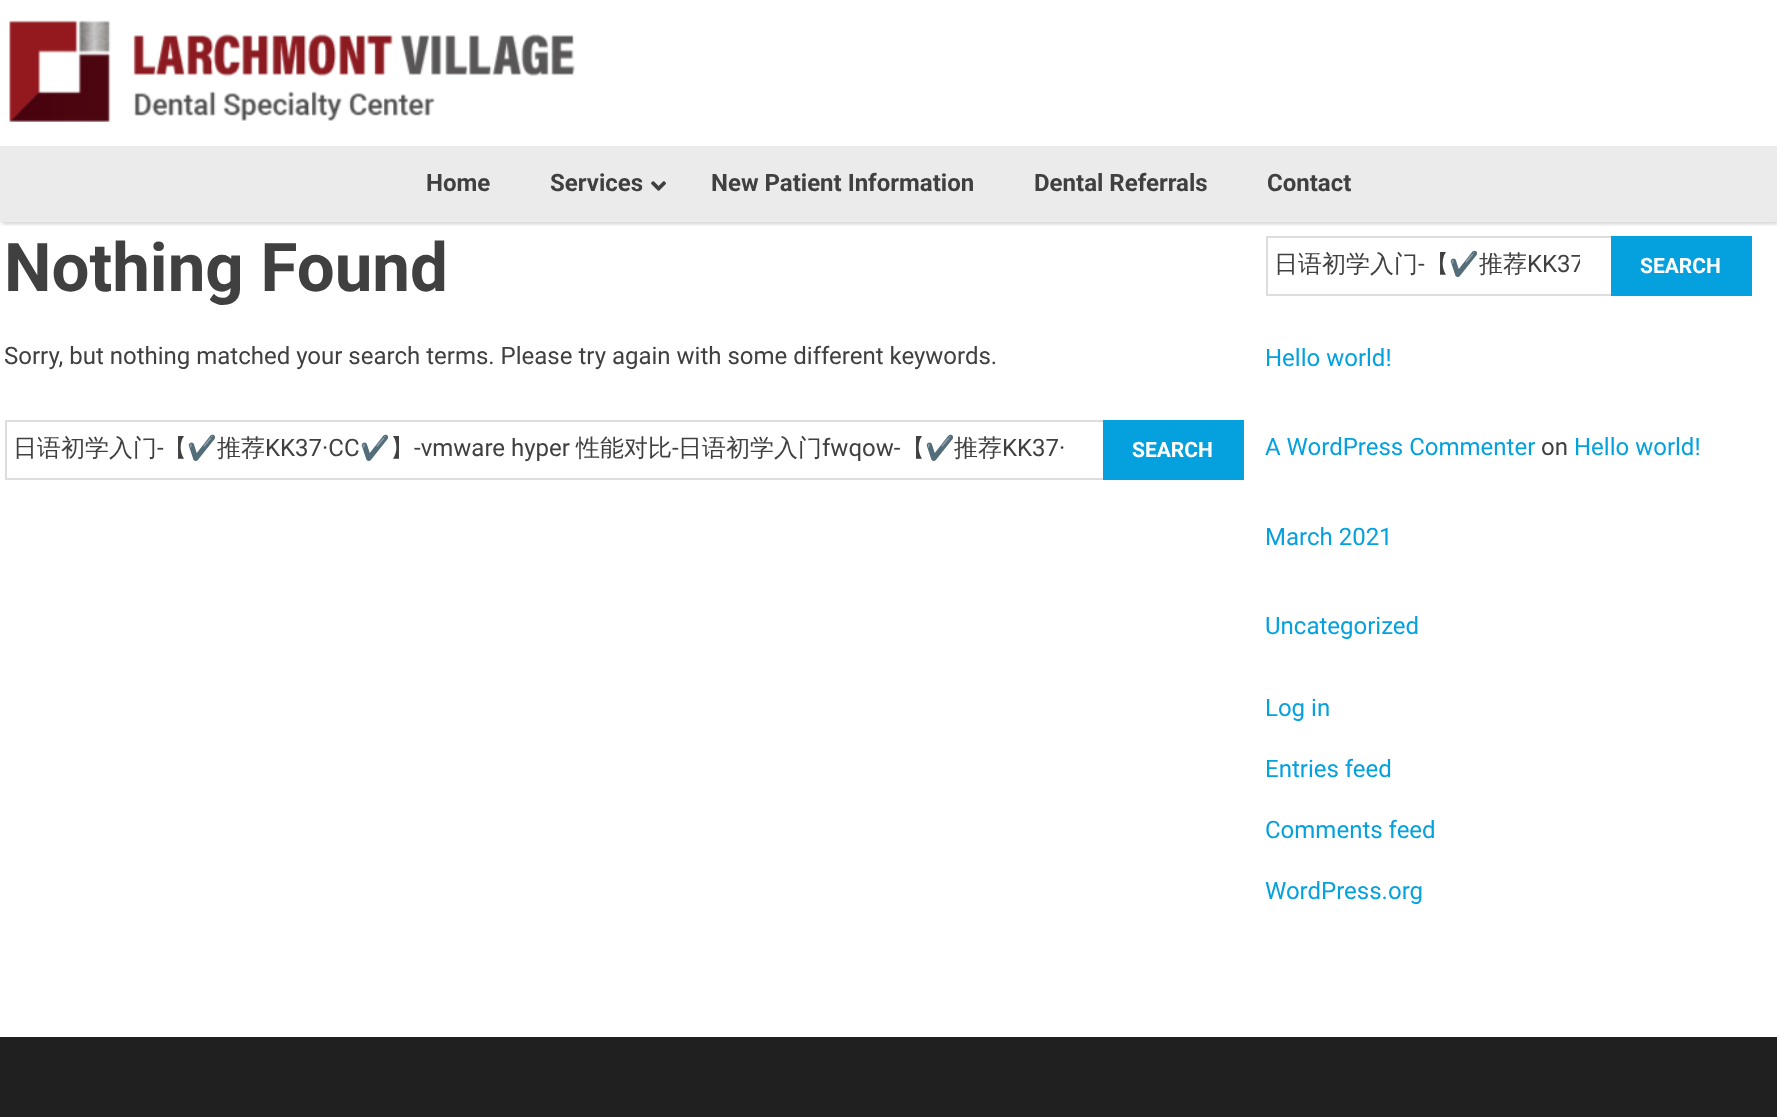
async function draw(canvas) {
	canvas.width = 1777;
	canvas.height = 1117;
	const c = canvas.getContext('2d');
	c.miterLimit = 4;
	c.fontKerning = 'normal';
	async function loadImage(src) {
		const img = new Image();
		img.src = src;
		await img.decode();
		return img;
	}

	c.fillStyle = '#fff';
	c.fillRect(0, 0, 1777, 1117);
	c.save();
	c.beginPath();
	c.rect(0, 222, 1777, 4);
	c.clip();
	c.fillStyle = '#0000002e';
	c.filter = 'blur(2px)';
	c.beginPath();
	c.rect(2, 2, 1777, 222);
	c.fill();
	c.filter = 'none';
	c.restore();
	c.drawImage(await loadImage('img1.png'), 9, 20, 567, 102);
	c.fillStyle = '#ebebeb';
	c.fillRect(0, 146, 1777, 76);
	c.font = 'bold 24px Roboto';
	c.fillStyle = '#404040';
	c.fillText('Home', 426, 191);
	c.fillText('Services', 550, 191);
	c.drawImage(await loadImage('img2.png'), 651, 181, 15, 10);
	for (const [text, x, y] of [
		['New Patient Information', 711, 191],
		['Dental Referrals', 1034, 191],
		['Contact', 1267, 191],
	]) {
		c.fillText(text, x, y);
	}
	c.font = 'bold 67.25px Roboto';
	c.fillText('Nothing Found', 4, 291);
	c.font = '24px Roboto';
	c.fillText('Sorry, but nothing matched your search terms. Please try again with some different keywords.', 4, 364);
	c.strokeStyle = '#ddd';
	c.lineWidth = 2;
	c.strokeRect(6, 421, 1237, 58);
	c.font = '500 24px WenQuanYi Zen Hei';
	c.fillText('日语初学入门', 13, 456);
	c.font = '24px Roboto';
	c.fillText('-', 157, 456);
	c.font = '500 24px WenQuanYi Zen Hei';
	c.fillText('【', 163, 456);
	c.font = '24px Noto Color Emoji';
	c.fillText('✔️', 187, 456);
	c.font = '500 24px WenQuanYi Zen Hei';
	c.fillText('推荐', 217, 456);
	c.font = '24px Roboto';
	c.fillText('KK37·CC', 265, 456);
	c.font = '24px Noto Color Emoji';
	c.fillText('✔️', 360, 456);
	c.font = '500 24px WenQuanYi Zen Hei';
	c.fillText('】', 390, 456);
	c.font = '24px Roboto';
	c.fillText('-vmware hyper', 414, 456);
	c.font = '500 24px WenQuanYi Zen Hei';
	c.fillText('性能对比', 576, 456);
	c.font = '24px Roboto';
	c.fillText('-', 672, 456);
	c.font = '500 24px WenQuanYi Zen Hei';
	c.fillText('日语初学入门', 678, 456);
	c.font = '24px Roboto';
	c.fillText('fwqow-', 822, 456);
	c.font = '500 24px WenQuanYi Zen Hei';
	c.fillText('【', 901, 456);
	c.font = '24px Noto Color Emoji';
	c.fillText('✔️', 925, 456);
	c.font = '500 24px WenQuanYi Zen Hei';
	c.fillText('推荐', 954, 456);
	c.font = '24px Roboto';
	c.fillText('KK37·', 1002, 456);
	c.fillStyle = '#05a1df';
	c.fillRect(1103, 420, 141, 60);
	c.font = 'bold 21px Roboto';
	c.fillStyle = '#fff';
	c.fillText('SEARCH', 1132, 457);
	c.strokeRect(1267, 237, 484, 58);
	c.font = '500 24px WenQuanYi Zen Hei';
	c.fillStyle = '#404040';
	c.fillText('日语初学入门', 1274, 272);
	c.font = '24px Roboto';
	c.fillText('-', 1418, 272);
	c.font = '500 24px WenQuanYi Zen Hei';
	c.fillText('【', 1425, 272);
	c.save();
	c.beginPath();
	c.rect(1275, 251, 305, 31);
	c.clip();
	c.font = '24px Noto Color Emoji';
	c.fillText('✔️', 1449, 272);
	c.restore();
	c.fillText('推荐', 1479, 272);
	c.save();
	c.beginPath();
	c.rect(1275, 251, 305, 31);
	c.clip();
	c.font = '24px Roboto';
	c.fillText('KK37', 1527, 272);
	c.restore();
	c.fillStyle = '#05a1df';
	c.fillRect(1611, 236, 141, 60);
	c.font = 'bold 21px Roboto';
	c.fillStyle = '#fff';
	c.fillText('SEARCH', 1640, 273);
	c.font = '24px Roboto';
	c.fillStyle = '#05a1df';
	c.fillText('Hello world!', 1265, 366);
	c.fillText('A WordPress Commenter', 1265, 455);
	c.fillStyle = '#404040';
	c.fillText('on', 1541, 455);
	c.fillStyle = '#05a1df';
	for (const [text, x, y] of [
		['Hello world!', 1574, 455],
		['March 2021', 1265, 545],
		['Uncategorized', 1265, 634],
		['Log in', 1265, 716],
		['Entries feed', 1265, 777],
		['Comments feed', 1265, 838],
		['WordPress.org', 1265, 899],
	]) {
		c.fillText(text, x, y);
	}
	c.fillStyle = '#202020';
	c.fillRect(0, 1037, 1777, 80);
}

draw(document.querySelector('canvas'));
